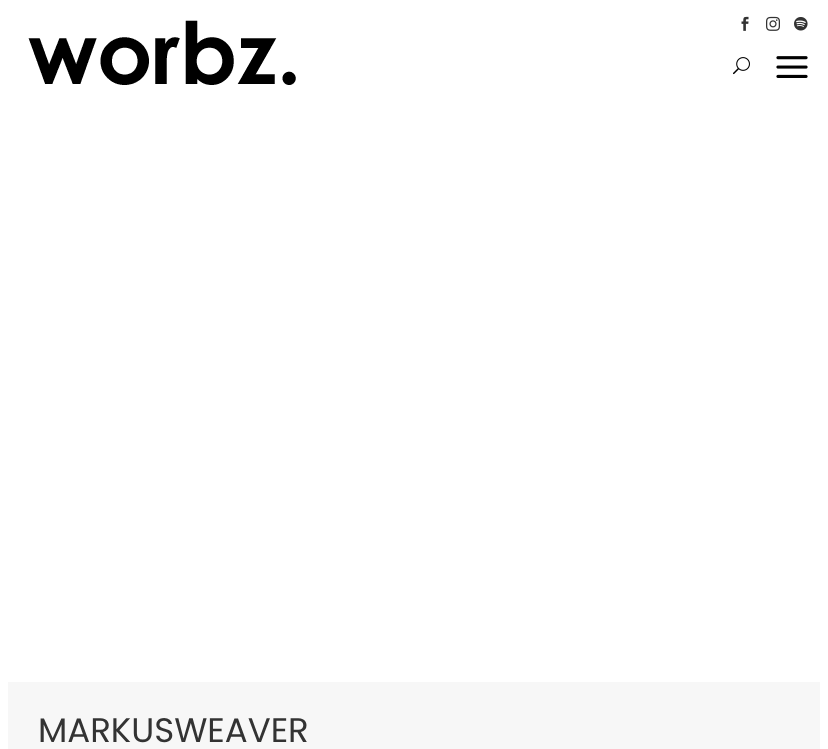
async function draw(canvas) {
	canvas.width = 828;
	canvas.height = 749;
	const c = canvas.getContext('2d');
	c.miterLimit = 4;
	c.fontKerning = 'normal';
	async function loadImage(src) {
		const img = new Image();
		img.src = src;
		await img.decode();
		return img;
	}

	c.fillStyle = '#fff';
	c.fillRect(0, 0, 828, 749);
	c.drawImage(await loadImage('img1.png'), 28, 20, 268, 65);
	c.drawImage(await loadImage('img2.png'), 741, 16, 8, 15);
	c.drawImage(await loadImage('img3.png'), 766, 16, 14, 15);
	c.drawImage(await loadImage('img4.png'), 794, 17, 14, 14);
	c.drawImage(await loadImage('img5.png'), 733, 57, 17, 18);
	c.drawImage(await loadImage('img6.png'), 776, 56, 32, 22);
	c.fillStyle = '#f7f7f7';
	c.fillRect(8, 682, 812, 67);
	c.font = '34px Poppins';
	c.fillStyle = '#333';
	c.fillText('MARKUSWEAVER', 38, 742);
}

draw(document.querySelector('canvas'));
